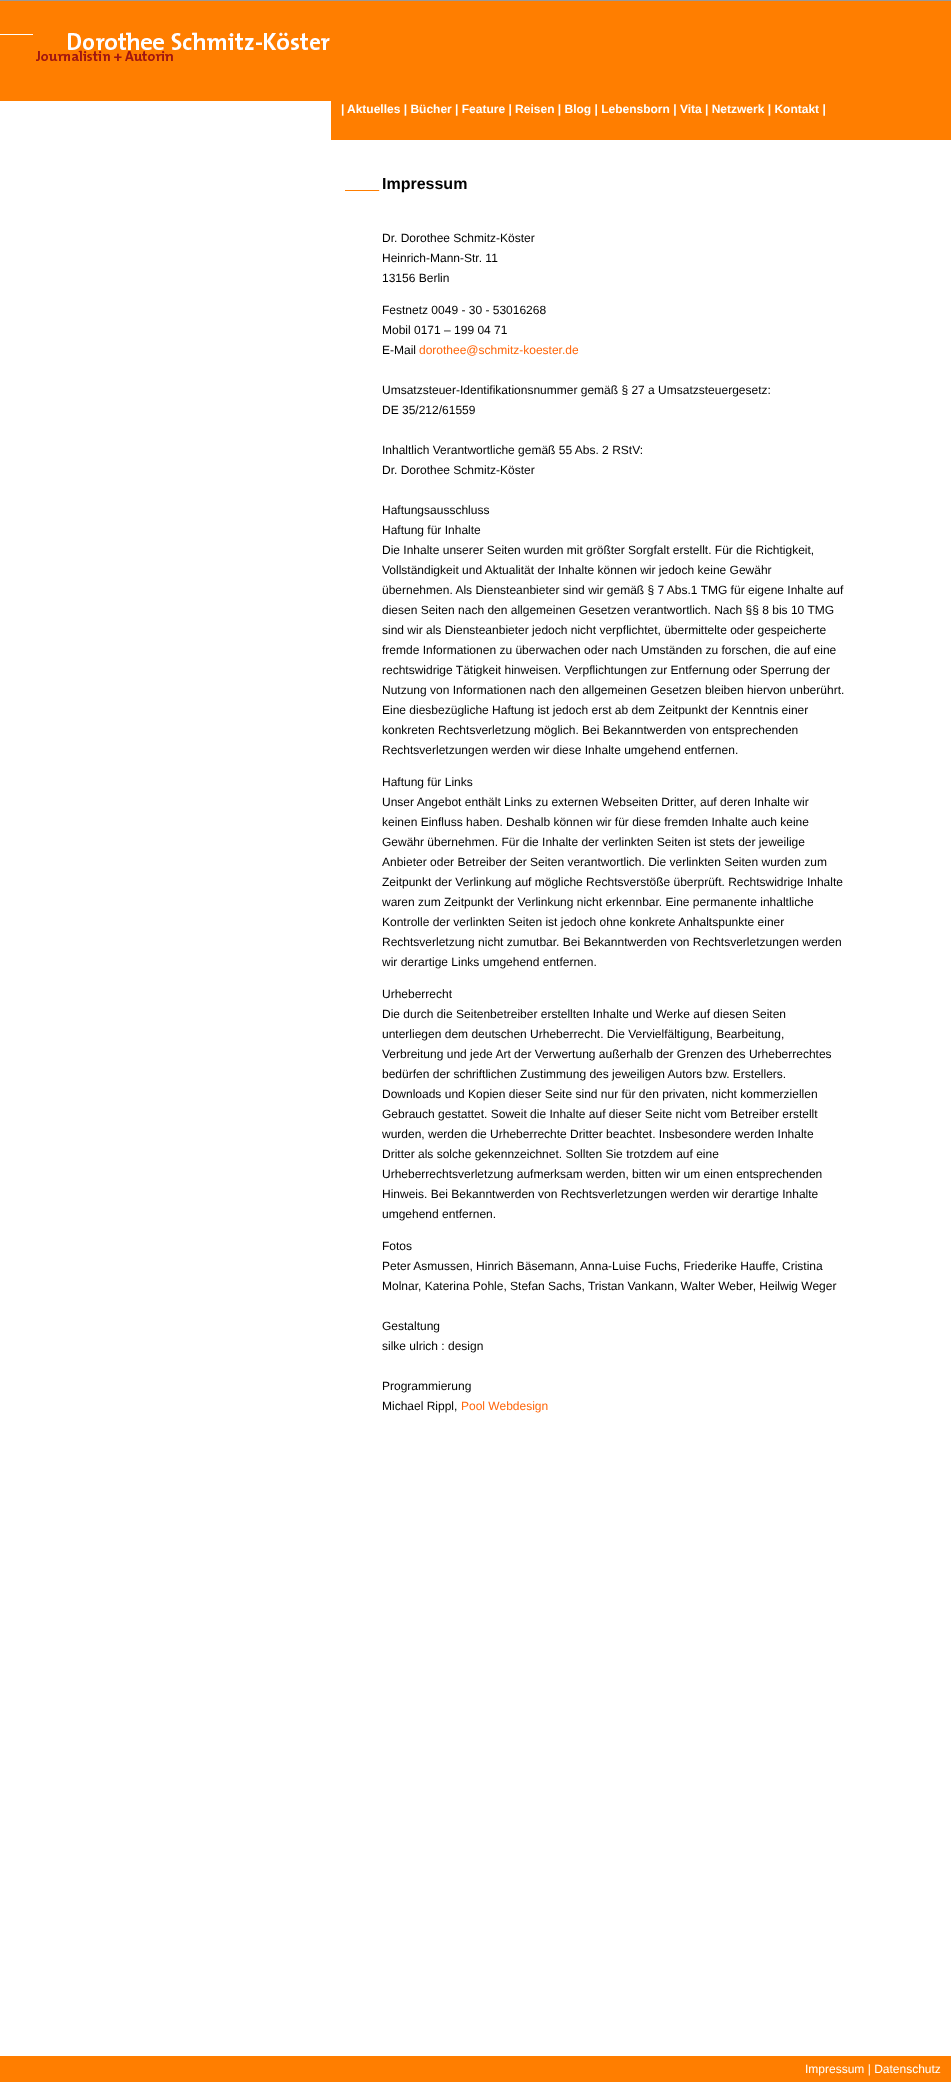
async function draw(canvas) {
	canvas.width = 951;
	canvas.height = 2082;
	const c = canvas.getContext('2d');
	c.miterLimit = 4;
	c.fontKerning = 'normal';
	async function loadImage(src) {
		const img = new Image();
		img.src = src;
		await img.decode();
		return img;
	}

	c.fillStyle = '#fff';
	c.fillRect(0, 0, 951, 2082);
	c.drawImage(await loadImage('img1.png'), 0, 0, 951, 140);
	c.font = 'bold 12px Liberation Sans';
	c.fillText('|', 341, 113);
	c.fillText('Aktuelles | Bücher | Feature | Reisen | Blog | Lebensborn | Vita | Netzwerk | Kontakt |', 347, 113);
	c.drawImage(await loadImage('img2.png'), 345, 190, 35, 1);
	c.font = 'bold 16px Liberation Sans';
	c.fillStyle = '#000';
	c.fillText('Impressum', 382, 189);
	c.font = '12px Liberation Sans';
	for (const [text, x, y] of [
		['Dr. Dorothee Schmitz-Köster', 382, 242],
		['Heinrich-Mann-Str. 11', 382, 262],
		['13156 Berlin', 382, 282],
		['Festnetz 0049 - 30 - 53016268', 382, 314],
		['Mobil 0171 – 199 04 71', 382, 334],
		['E-Mail', 382, 354],
	]) {
		c.fillText(text, x, y);
	}
	c.fillStyle = '#ff660a';
	c.fillText('dorothee@schmitz-koester.de', 419, 354);
	c.fillStyle = '#000';
	for (const [text, x, y] of [
		['Umsatzsteuer-Identifikationsnummer gemäß § 27 a Umsatzsteuergesetz:', 382, 394],
		['DE 35/212/61559', 382, 414],
		['Inhaltlich Verantwortliche gemäß 55 Abs. 2 RStV:', 382, 454],
		['Dr. Dorothee Schmitz-Köster', 382, 474],
		['Haftungsausschluss', 382, 514],
		['Haftung für Inhalte', 382, 534],
		['Die Inhalte unserer Seiten wurden mit größter Sorgfalt erstellt. Für die Richtigkeit,', 382, 554],
		['Vollständigkeit und Aktualität der Inhalte können wir jedoch keine Gewähr', 382, 574],
		['übernehmen. Als Diensteanbieter sind wir gemäß § 7 Abs.1 TMG für eigene Inhalte auf', 382, 594],
		['diesen Seiten nach den allgemeinen Gesetzen verantwortlich. Nach §§ 8 bis 10 TMG', 382, 614],
		['sind wir als Diensteanbieter jedoch nicht verpflichtet, übermittelte oder gespeicherte', 382, 634],
		['fremde Informationen zu überwachen oder nach Umständen zu forschen, die auf eine', 382, 654],
		['rechtswidrige Tätigkeit hinweisen. Verpflichtungen zur Entfernung oder Sperrung der', 382, 674],
		['Nutzung von Informationen nach den allgemeinen Gesetzen bleiben hiervon unberührt.', 382, 694],
		['Eine diesbezügliche Haftung ist jedoch erst ab dem Zeitpunkt der Kenntnis einer', 382, 714],
		['konkreten Rechtsverletzung möglich. Bei Bekanntwerden von entsprechenden', 382, 734],
		['Rechtsverletzungen werden wir diese Inhalte umgehend entfernen.', 382, 754],
		['Haftung für Links', 382, 786],
		['Unser Angebot enthält Links zu externen Webseiten Dritter, auf deren Inhalte wir', 382, 806],
		['keinen Einfluss haben. Deshalb können wir für diese fremden Inhalte auch keine', 382, 826],
		['Gewähr übernehmen. Für die Inhalte der verlinkten Seiten ist stets der jeweilige', 382, 846],
		['Anbieter oder Betreiber der Seiten verantwortlich. Die verlinkten Seiten wurden zum', 382, 866],
		['Zeitpunkt der Verlinkung auf mögliche Rechtsverstöße überprüft. Rechtswidrige Inhalte', 382, 886],
		['waren zum Zeitpunkt der Verlinkung nicht erkennbar. Eine permanente inhaltliche', 382, 906],
		['Kontrolle der verlinkten Seiten ist jedoch ohne konkrete Anhaltspunkte einer', 382, 926],
		['Rechtsverletzung nicht zumutbar. Bei Bekanntwerden von Rechtsverletzungen werden', 382, 946],
		['wir derartige Links umgehend entfernen.', 382, 966],
		['Urheberrecht', 382, 998],
		['Die durch die Seitenbetreiber erstellten Inhalte und Werke auf diesen Seiten', 382, 1018],
		['unterliegen dem deutschen Urheberrecht. Die Vervielfältigung, Bearbeitung,', 382, 1038],
		['Verbreitung und jede Art der Verwertung außerhalb der Grenzen des Urheberrechtes', 382, 1058],
		['bedürfen der schriftlichen Zustimmung des jeweiligen Autors bzw. Erstellers.', 382, 1078],
		['Downloads und Kopien dieser Seite sind nur für den privaten, nicht kommerziellen', 382, 1098],
		['Gebrauch gestattet. Soweit die Inhalte auf dieser Seite nicht vom Betreiber erstellt', 382, 1118],
		['wurden, werden die Urheberrechte Dritter beachtet. Insbesondere werden Inhalte', 382, 1138],
		['Dritter als solche gekennzeichnet. Sollten Sie trotzdem auf eine', 382, 1158],
		['Urheberrechtsverletzung aufmerksam werden, bitten wir um einen entsprechenden', 382, 1178],
		['Hinweis. Bei Bekanntwerden von Rechtsverletzungen werden wir derartige Inhalte', 382, 1198],
		['umgehend entfernen.', 382, 1218],
		['Fotos', 382, 1250],
		['Peter Asmussen, Hinrich Bäsemann, Anna-Luise Fuchs, Friederike Hauffe, Cristina', 382, 1270],
		['Molnar, Katerina Pohle, Stefan Sachs, Tristan Vankann, Walter Weber, Heilwig Weger', 382, 1290],
		['Gestaltung', 382, 1330],
		['silke ulrich : design', 382, 1350],
		['Programmierung', 382, 1390],
		['Michael Rippl,', 382, 1410],
	]) {
		c.fillText(text, x, y);
	}
	c.fillStyle = '#ff660a';
	c.fillText('Pool Webdesign', 461, 1410);
	c.fillStyle = '#ff7e00';
	c.fillRect(0, 2056, 951, 26);
	c.fillStyle = '#fff';
	c.fillText('Impressum | Datenschutz', 805, 2073);
}

draw(document.querySelector('canvas'));
